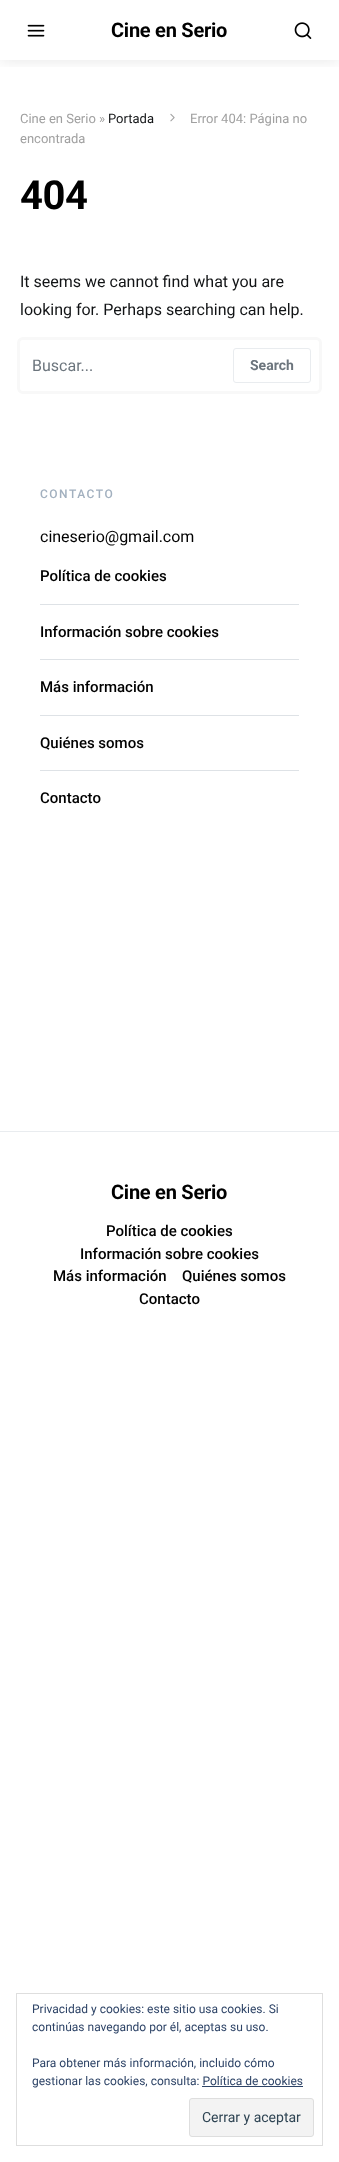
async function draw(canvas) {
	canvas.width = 339;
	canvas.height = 2162;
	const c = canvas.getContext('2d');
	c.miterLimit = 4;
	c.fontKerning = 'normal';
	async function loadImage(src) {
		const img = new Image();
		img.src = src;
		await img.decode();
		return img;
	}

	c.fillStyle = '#fff';
	c.fillRect(0, 0, 339, 2162);
	c.save();
	c.beginPath();
	c.rect(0, 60, 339, 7);
	c.clip();
	c.fillStyle = '#0000001a';
	c.filter = 'blur(8px)';
	c.beginPath();
	c.rect(0, 0, 339, 60);
	c.fill();
	c.filter = 'none';
	c.restore();
	c.drawImage(await loadImage('img1.png'), 27, 24, 18, 13);
	c.letterSpacing = '-0.25px';
	c.font = 'bold 20px Roboto';
	c.fillStyle = '#000';
	c.fillText('Cine en Serio', 111, 37);
	c.drawImage(await loadImage('img2.png'), 294, 22, 18, 17);
	c.letterSpacing = '0px';
	c.font = '13px Roboto';
	c.fillStyle = '#a0a0a0';
	c.fillText('Cine en Serio »', 20, 123);
	c.fillStyle = '#121416';
	c.fillText('Portada', 108, 123);
	c.drawImage(await loadImage('img3.png'), 170, 113, 5, 9);
	c.fillStyle = '#a0a0a0';
	c.fillText('Error 404: Página no', 190, 123);
	c.fillText('encontrada', 20, 143);
	c.letterSpacing = '-0.5px';
	c.font = 'bold 40px Roboto';
	c.fillStyle = '#000';
	c.fillText('404', 20, 209);
	c.letterSpacing = '0px';
	c.font = '16px Roboto';
	c.fillStyle = '#121416';
	c.fillText('It seems we cannot find what you are', 20, 287);
	c.fillText('looking for. Perhaps searching can help.', 20, 315);
	c.beginPath();
	c.roundRect(18.5, 338.5, 302, 54, 4.5);
	c.strokeStyle = '#f8f8f8';
	c.lineWidth = 3;
	c.stroke();
	c.fillStyle = '#6c757d';
	c.fillText('Buscar...', 32, 371);
	c.beginPath();
	c.roundRect(233.5, 348.5, 77, 34, 2.5);
	c.strokeStyle = '#e9ecef';
	c.lineWidth = 1;
	c.stroke();
	c.font = 'bold 14px Roboto';
	c.fillText('Search', 250, 370);
	c.letterSpacing = '1.5px';
	c.font = '500 12px Roboto';
	c.fillStyle = '#a2b0bf';
	c.fillText('CONTACTO', 40, 498);
	c.letterSpacing = '0px';
	c.font = '16px Roboto';
	c.fillStyle = '#000';
	c.fillText('cineserio@gmail.com', 40, 542);
	c.font = '500 15px Roboto';
	c.fillText('Política de cookies', 40, 581);
	c.fillStyle = '#dee2e6';
	c.fillRect(40, 604, 259, 1);
	c.fillStyle = '#000';
	c.fillText('Información sobre cookies', 40, 637);
	c.fillStyle = '#dee2e6';
	c.fillRect(40, 659, 259, 1);
	c.fillStyle = '#000';
	c.fillText('Más información', 40, 692);
	c.fillStyle = '#dee2e6';
	c.fillRect(40, 715, 259, 1);
	c.fillStyle = '#000';
	c.fillText('Quiénes somos', 40, 748);
	c.fillStyle = '#dee2e6';
	c.fillRect(40, 770, 259, 1);
	c.fillStyle = '#000';
	c.fillText('Contacto', 40, 803);
	c.fillStyle = '#e9ecef';
	c.fillRect(0, 1131, 339, 1);
	c.letterSpacing = '-0.25px';
	c.font = 'bold 20px Roboto';
	c.fillStyle = '#000';
	c.fillText('Cine en Serio', 111, 1199);
	c.letterSpacing = '0px';
	c.font = '500 15px Roboto';
	for (const [text, x, y] of [
		['Política de cookies', 106, 1236],
		['Información sobre cookies', 80, 1259],
		['Más información', 53, 1281],
		['Quiénes somos', 182, 1281],
		['Contacto', 139, 1304],
	]) {
		c.fillText(text, x, y);
	}
	c.strokeStyle = '#dedede';
	c.strokeRect(16.5, 1993.5, 306, 152);
	c.font = '12px Roboto';
	c.fillStyle = '#2e4467';
	for (const [text, x, y] of [
		['Privacidad y cookies: este sitio usa cookies. Si', 32, 2013],
		['continúas navegando por él, aceptas su uso.', 32, 2031],
		['Para obtener más información, incluido cómo', 32, 2067],
		['gestionar las cookies, consulta: Política de cookies', 32, 2085],
	]) {
		c.fillText(text, x, y);
	}
	c.fillRect(202, 2086, 101, 1);
	c.fillStyle = '#f3f3f3';
	c.beginPath();
	c.roundRect(189.5, 2098.5, 124, 38, 2.5);
	c.fill();
	c.stroke();
	c.font = '14px Roboto';
	c.fillStyle = '#2e4453';
	c.fillText('Cerrar y aceptar', 202, 2122);
}

draw(document.querySelector('canvas'));
